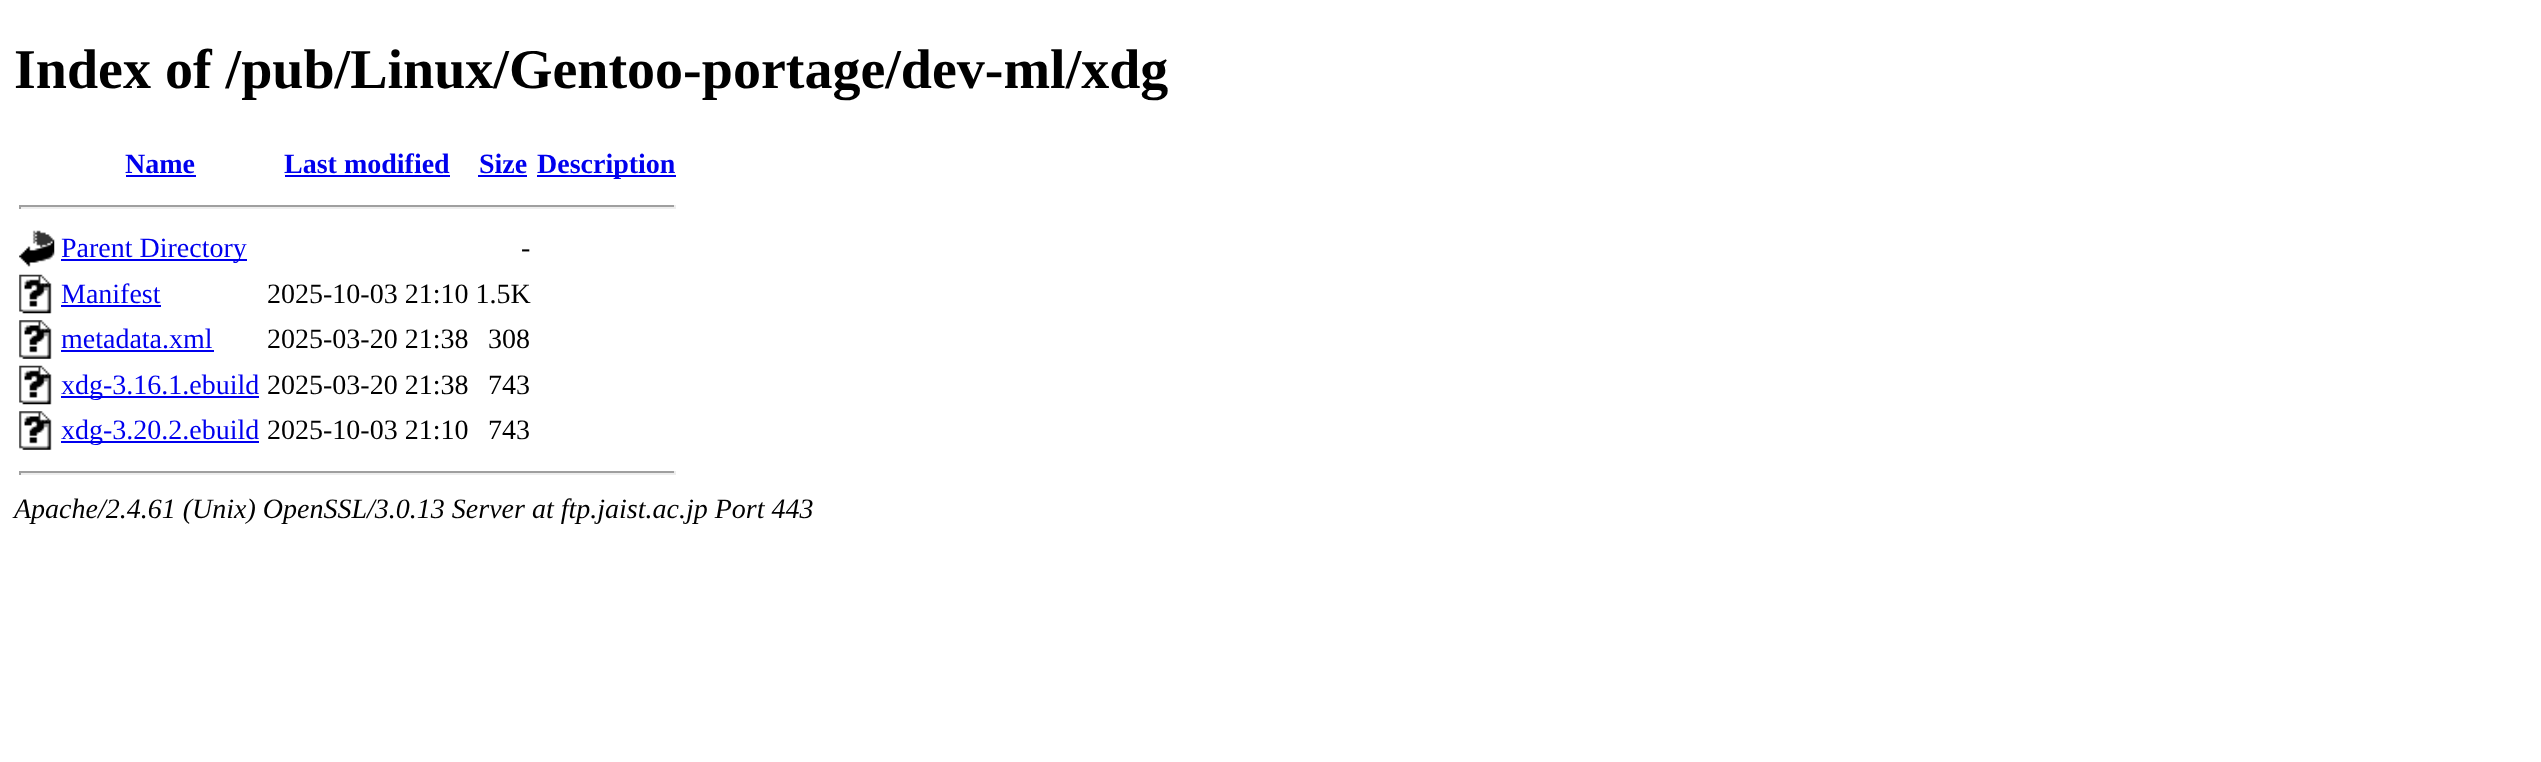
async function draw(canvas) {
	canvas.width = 2541;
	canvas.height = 762;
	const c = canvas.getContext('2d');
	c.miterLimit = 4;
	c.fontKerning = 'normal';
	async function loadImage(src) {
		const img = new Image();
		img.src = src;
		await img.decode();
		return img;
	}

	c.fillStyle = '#fff';
	c.fillRect(0, 0, 2541, 762);
	c.font = 'bold 56px Liberation Serif';
	c.fillStyle = '#000';
	c.fillText('Index of /pub/Linux/Gentoo-portage/dev-ml/xdg', 14, 88);
	c.font = 'bold 28px Liberation Serif';
	c.fillStyle = '#00e';
	c.fillText('Name', 125, 173);
	c.fillRect(126, 175, 70, 2);
	c.fillText('Last modified', 284, 173);
	c.fillRect(285, 175, 165, 2);
	c.fillText('Size', 479, 173);
	c.fillRect(478, 175, 49, 2);
	c.fillRect(537, 175, 139, 2);
	c.fillText('Description', 537, 173);
	for (const [x, y, w, h, color] of [
		[19, 205, 657, 2, '#9f9f9f'],
		[674, 205, 2, 4, '#eee'],
		[19, 207, 657, 2, '#eee'],
		[19, 205, 2, 4, '#9f9f9f'],
	]) {
		c.fillStyle = color;
		c.fillRect(x, y, w, h);
	}
	c.drawImage(await loadImage('img1.png'), 19, 230, 36, 37);
	c.fillStyle = '#00e';
	c.fillRect(61, 259, 186, 2);
	c.font = '28px Liberation Serif';
	c.fillText('Parent Directory', 61, 257);
	c.fillStyle = '#000';
	c.fillText('-', 521, 257);
	c.drawImage(await loadImage('img2.png'), 19, 274, 33, 40);
	c.fillStyle = '#00e';
	c.fillText('Manifest', 61, 303);
	c.fillRect(61, 305, 100, 2);
	c.fillStyle = '#000';
	c.fillText('2025-10-03 21:10 1.5K', 267, 303);
	c.drawImage(await loadImage('img3.png'), 19, 320, 33, 39);
	c.fillStyle = '#00e';
	c.fillText('metadata.xml', 61, 348);
	c.fillRect(61, 350, 153, 2);
	c.fillStyle = '#000';
	c.fillText('2025-03-20 21:38', 267, 348);
	c.fillText('308', 488, 348);
	c.drawImage(await loadImage('img2.png'), 19, 365, 33, 40);
	c.fillStyle = '#00e';
	c.fillRect(61, 396, 198, 2);
	c.fillText('xdg-3.16.1.ebuild', 61, 394);
	c.fillStyle = '#000';
	c.fillText('2025-03-20 21:38', 267, 394);
	c.fillText('743', 488, 394);
	c.drawImage(await loadImage('img3.png'), 19, 411, 33, 39);
	c.fillStyle = '#00e';
	c.fillRect(61, 441, 198, 2);
	c.fillText('xdg-3.20.2.ebuild', 61, 439);
	c.fillStyle = '#000';
	c.fillText('2025-10-03 21:10', 267, 439);
	c.fillText('743', 488, 439);
	for (const [x, y, w, h, color] of [
		[19, 471, 657, 2, '#9f9f9f'],
		[674, 471, 2, 4, '#eee'],
		[19, 473, 657, 2, '#eee'],
		[19, 471, 2, 4, '#9f9f9f'],
	]) {
		c.fillStyle = color;
		c.fillRect(x, y, w, h);
	}
	c.font = 'italic 28px Liberation Serif';
	c.fillStyle = '#000';
	c.fillText('Apache/2.4.61 (Unix) OpenSSL/3.0.13 Server at ftp.jaist.ac.jp Port 443', 14, 518);
}

draw(document.querySelector('canvas'));
